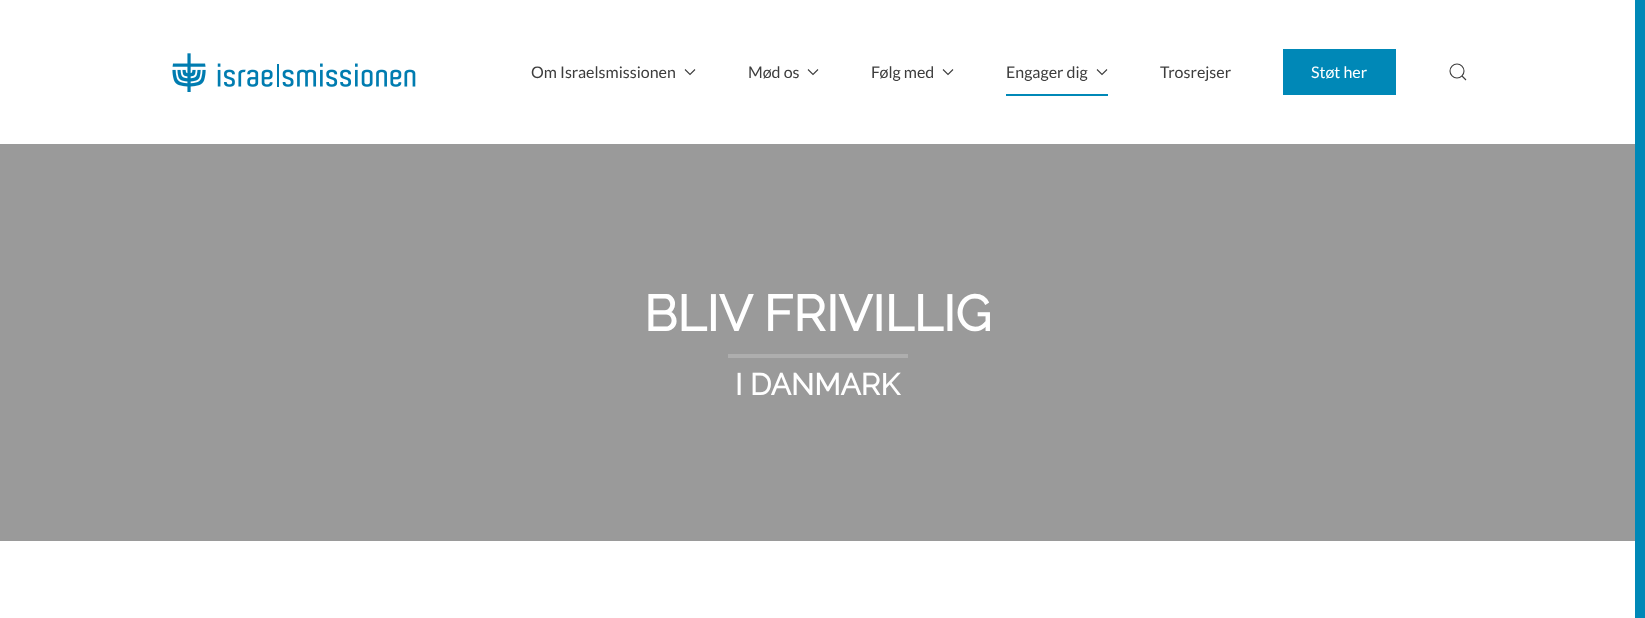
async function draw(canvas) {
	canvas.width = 1645;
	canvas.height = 618;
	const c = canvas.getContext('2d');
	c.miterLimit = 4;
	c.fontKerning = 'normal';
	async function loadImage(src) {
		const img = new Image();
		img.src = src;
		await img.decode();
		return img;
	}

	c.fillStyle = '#fff';
	c.fillRect(0, 0, 1645, 618);
	c.fillStyle = '#0088b7';
	c.fillRect(1635, 0, 10, 618);
	c.drawImage(await loadImage('img1.png'), 172, 53, 244, 39);
	c.font = '16px Lato';
	c.fillStyle = '#3d3d3d';
	c.fillText('Om Israelsmissionen', 531, 78);
	c.beginPath();
	c.moveTo(685, 69.5);
	c.lineTo(690, 74.5);
	c.lineTo(695, 69.5);
	c.strokeStyle = '#3d3d3d';
	c.lineWidth = 1.1;
	c.stroke();
	c.fillText('Mød os', 748, 78);
	c.beginPath();
	c.moveTo(808, 69.5);
	c.lineTo(813, 74.5);
	c.lineTo(818, 69.5);
	c.stroke();
	c.fillText('Følg med', 871, 78);
	c.beginPath();
	c.moveTo(943, 69.5);
	c.lineTo(948, 74.5);
	c.lineTo(953, 69.5);
	c.stroke();
	c.fillText('Engager dig', 1006, 78);
	c.beginPath();
	c.moveTo(1097, 69.5);
	c.lineTo(1102, 74.5);
	c.lineTo(1107, 69.5);
	c.stroke();
	c.fillStyle = '#0088b7';
	c.fillRect(1006, 94, 102, 2);
	c.fillStyle = '#3d3d3d';
	c.fillText('Trosrejser', 1160, 78);
	c.fillStyle = '#0088b7';
	c.fillRect(1283, 49, 113, 46);
	c.fillStyle = '#fff';
	c.fillText('Støt her', 1311, 78);
	c.beginPath();
	c.arc(1457, 71, 7, 0, 2 * Math.PI);
	c.stroke();
	c.beginPath();
	c.moveTo(1462, 76);
	c.lineTo(1466, 80);
	c.closePath();
	c.stroke();
	c.fillStyle = '#9a9a9a';
	c.fillRect(0, 144, 1635, 397);
	c.font = 'bold 50px Raleway';
	c.fillStyle = '#fff';
	c.fillText('BLIV FRIVILLIG', 644, 331);
	c.fillStyle = '#aeaeae';
	c.fillRect(728, 354, 180, 4);
	c.font = 'bold 30px Raleway';
	c.fillStyle = '#fff';
	c.fillText('I DANMARK', 735, 395);
}

draw(document.querySelector('canvas'));
